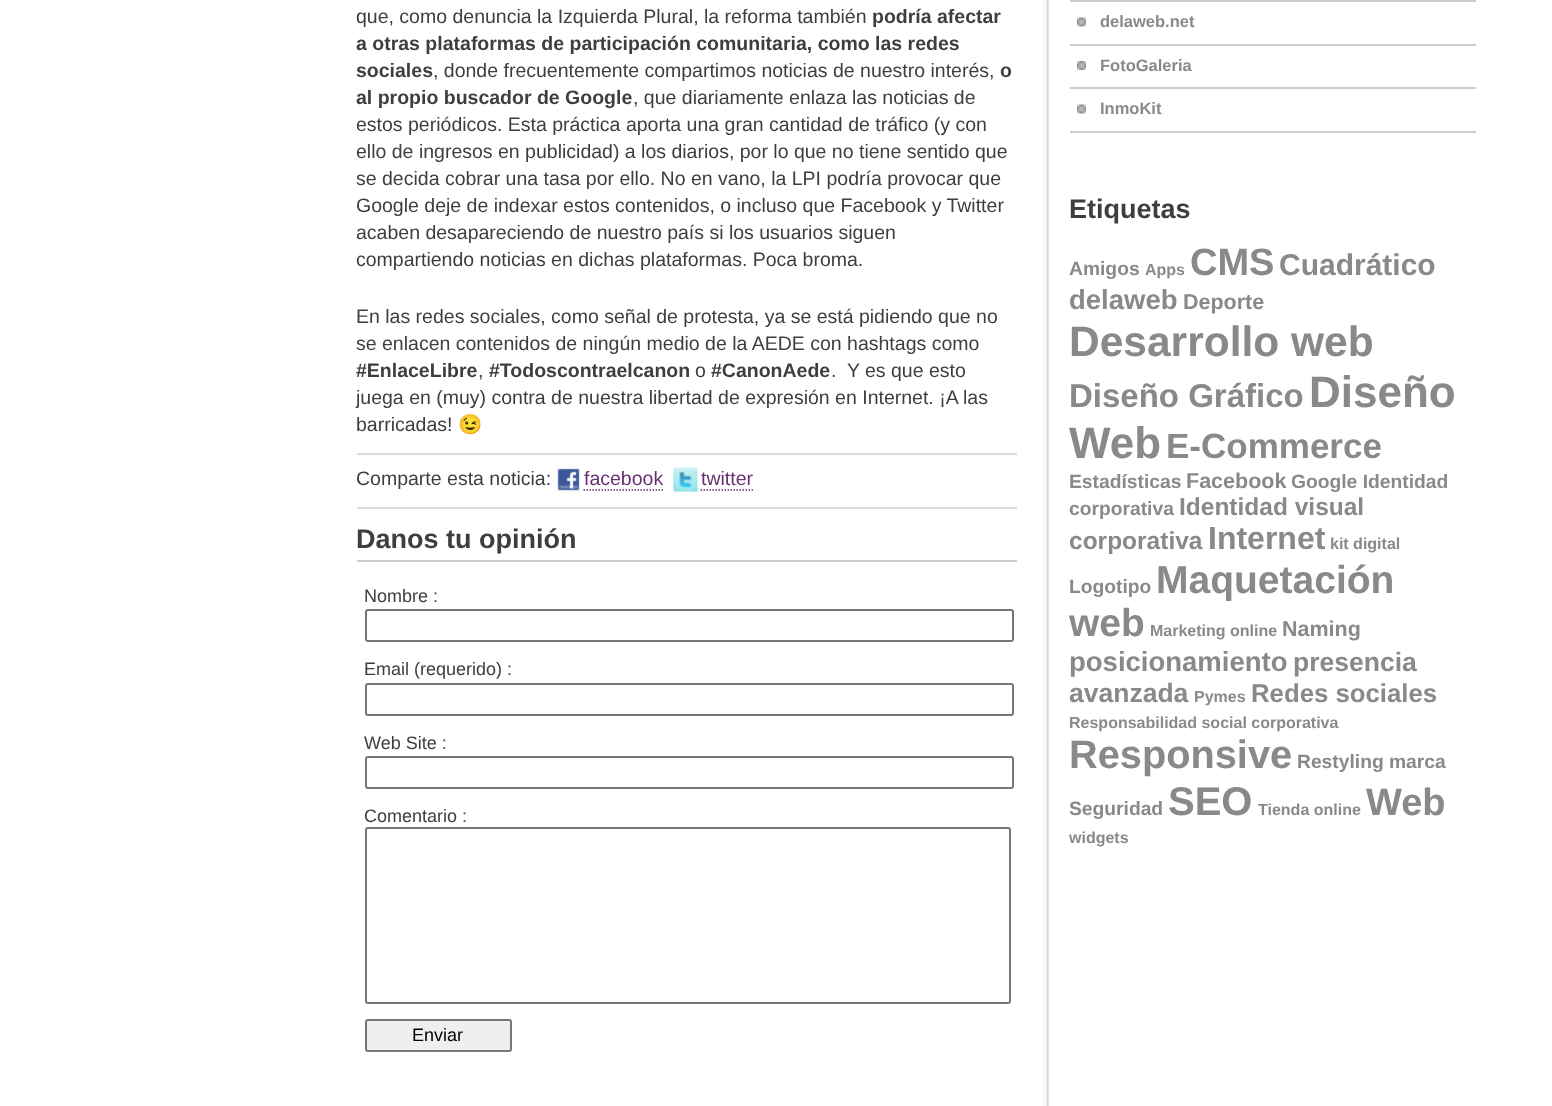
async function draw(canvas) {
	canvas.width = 1552;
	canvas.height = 1106;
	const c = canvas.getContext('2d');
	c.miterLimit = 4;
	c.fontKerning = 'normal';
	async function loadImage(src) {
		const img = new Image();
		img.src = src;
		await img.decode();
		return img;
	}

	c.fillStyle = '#fff';
	c.fillRect(0, 0, 1552, 1106);
	c.drawImage(await loadImage('img1.png'), 1043, 0, 6, 1106);
	c.font = '19.5px Liberation Sans';
	c.fillStyle = '#3e3e3e';
	c.fillText('que, como denuncia la Izquierda Plural, la reforma también', 356, 23);
	c.font = 'bold 19.5px Liberation Sans';
	for (const [text, x, y] of [
		['podría afectar', 872, 23],
		['a otras plataformas de participación comunitaria, como las redes', 356, 50],
		['sociales', 356, 77],
	]) {
		c.fillText(text, x, y);
	}
	c.font = '19.5px Liberation Sans';
	c.fillText(', donde frecuentemente compartimos noticias de nuestro interés,', 433, 77);
	c.font = 'bold 19.5px Liberation Sans';
	c.fillText('o', 1000, 77);
	c.fillText('al propio buscador de Google', 356, 104);
	c.font = '19.5px Liberation Sans';
	for (const [text, x, y] of [
		[', que diariamente enlaza las noticias de', 633, 104],
		['estos periódicos. Esta práctica aporta una gran cantidad de tráfico (y con', 356, 131],
		['ello de ingresos en publicidad) a los diarios, por lo que no tiene sentido que', 356, 158],
		['se decida cobrar una tasa por ello. No en vano, la LPI podría provocar que', 356, 185],
		['Google deje de indexar estos contenidos, o incluso que Facebook y Twitter', 356, 212],
		['acaben desapareciendo de nuestro país si los usuarios siguen', 356, 239],
		['compartiendo noticias en dichas plataformas. Poca broma.', 356, 266],
		['En las redes sociales, como señal de protesta, ya se está pidiendo que no', 356, 323],
		['se enlacen contenidos de ningún medio de la AEDE con hashtags como', 356, 350],
	]) {
		c.fillText(text, x, y);
	}
	c.font = 'bold 19.5px Liberation Sans';
	c.fillText('#EnlaceLibre', 356, 377);
	c.font = '19.5px Liberation Sans';
	c.fillText(',', 478, 377);
	c.font = 'bold 19.5px Liberation Sans';
	c.fillText('#Todoscontraelcanon', 489, 377);
	c.font = '19.5px Liberation Sans';
	c.fillText('o', 695, 377);
	c.font = 'bold 19.5px Liberation Sans';
	c.fillText('#CanonAede', 711, 377);
	c.font = '19.5px Liberation Sans';
	for (const [text, x, y] of [
		['.  Y es que esto', 831, 377],
		['juega en (muy) contra de nuestra libertad de expresión en Internet. ¡A las', 356, 404],
		['barricadas!', 356, 431],
	]) {
		c.fillText(text, x, y);
	}
	c.font = '19.5px Noto Color Emoji';
	c.fillText('😉', 458, 431);
	c.fillStyle = '#dbdbdb';
	c.fillRect(357, 453, 660, 2);
	c.fillRect(357, 507, 660, 2);
	c.font = '19.5px Liberation Sans';
	c.fillStyle = '#3e3e3e';
	c.fillText('Comparte esta noticia:', 356, 485);
	c.drawImage(await loadImage('img2.png'), 557, 468, 23, 23);
	c.fillStyle = '#682f72';
	c.fillText('facebook', 584, 485);
	c.beginPath();
	c.moveTo(583.5, 490);
	c.lineTo(663, 490);
	c.strokeStyle = '#682f72';
	c.lineWidth = 1.5;
	c.setLineDash([1.5, 1.5]);
	c.stroke();
	c.drawImage(await loadImage('img3.png'), 673, 467, 25, 25);
	c.fillText('twitter', 701, 485);
	c.beginPath();
	c.moveTo(700.5, 490);
	c.lineTo(753, 490);
	c.stroke();
	c.fillStyle = '#ccc';
	c.fillRect(357, 560, 660, 2);
	c.font = 'bold 27px Liberation Sans';
	c.fillStyle = '#3e3e3e';
	c.fillText('Danos tu opinión', 356, 548);
	c.font = '18px Liberation Sans';
	c.fillText('Nombre :', 364, 602);
	c.beginPath();
	c.roundRect(366, 610, 647, 31, 2);
	c.strokeStyle = '#767676';
	c.lineWidth = 2;
	c.setLineDash([]);
	c.stroke();
	c.fillText('Email (requerido) :', 364, 675);
	c.beginPath();
	c.roundRect(366, 684, 647, 31, 2);
	c.stroke();
	c.fillText('Web Site :', 364, 749);
	c.beginPath();
	c.roundRect(366, 757, 647, 31, 2);
	c.stroke();
	c.fillText('Comentario :', 364, 822);
	c.beginPath();
	c.roundRect(366, 828, 644, 175, 2);
	c.stroke();
	c.fillStyle = '#efefef';
	c.beginPath();
	c.roundRect(366, 1020, 145, 31, 2);
	c.fill();
	c.stroke();
	c.fillStyle = '#000';
	c.fillText('Enviar', 412, 1041);
	c.fillStyle = '#ccc';
	c.fillRect(1070, 0, 406, 2);
	c.drawImage(await loadImage('img4.png'), 1077, 17, 9, 10);
	c.fillRect(1070, 44, 406, 2);
	c.font = 'bold 16.5px Liberation Sans';
	c.fillStyle = '#898989';
	c.fillText('delaweb.net', 1100, 27);
	c.drawImage(await loadImage('img5.png'), 1077, 61, 9, 9);
	c.fillStyle = '#ccc';
	c.fillRect(1070, 87, 406, 2);
	c.fillStyle = '#898989';
	c.fillText('FotoGaleria', 1100, 71);
	c.drawImage(await loadImage('img4.png'), 1077, 104, 9, 10);
	c.fillStyle = '#ccc';
	c.fillRect(1070, 131, 406, 2);
	c.fillStyle = '#898989';
	c.fillText('InmoKit', 1100, 114);
	c.font = 'bold 27px Liberation Sans';
	c.fillStyle = '#3e3e3e';
	c.fillText('Etiquetas', 1069, 218);
	c.font = 'bold 19.25px Liberation Sans';
	c.fillStyle = '#898989';
	c.fillText('Amigos', 1069, 275);
	c.font = 'bold 16px Liberation Sans';
	c.fillText('Apps', 1145, 275);
	c.font = 'bold 38px Liberation Sans';
	c.fillText('CMS', 1190, 275);
	c.font = 'bold 30px Liberation Sans';
	c.fillText('Cuadrático', 1279, 275);
	c.font = 'bold 27.5px Liberation Sans';
	c.fillText('delaweb', 1069, 309);
	c.font = 'bold 21.5px Liberation Sans';
	c.fillText('Deporte', 1183, 309);
	c.font = 'bold 42.5px Liberation Sans';
	c.fillText('Desarrollo web', 1069, 356);
	c.font = 'bold 33px Liberation Sans';
	c.fillText('Diseño Gráfico', 1069, 407);
	c.font = 'bold 44px Liberation Sans';
	c.fillText('Diseño', 1309, 407);
	c.fillText('Web', 1069, 458);
	c.font = 'bold 35px Liberation Sans';
	c.fillText('E-Commerce', 1166, 458);
	c.font = 'bold 19.25px Liberation Sans';
	c.fillText('Estadísticas', 1069, 488);
	c.font = 'bold 21.5px Liberation Sans';
	c.fillText('Facebook', 1186, 488);
	c.font = 'bold 19.25px Liberation Sans';
	c.fillText('Google Identidad', 1291, 488);
	c.fillText('corporativa', 1069, 515);
	c.font = 'bold 24.5px Liberation Sans';
	c.fillText('Identidad visual', 1179, 515);
	c.fillText('corporativa', 1069, 549);
	c.font = 'bold 32px Liberation Sans';
	c.fillText('Internet', 1208, 549);
	c.font = 'bold 16px Liberation Sans';
	c.fillText('kit digital', 1330, 549);
	c.font = 'bold 19.25px Liberation Sans';
	c.fillText('Logotipo', 1069, 593);
	c.font = 'bold 39px Liberation Sans';
	c.fillText('Maquetación', 1156, 593);
	c.fillText('web', 1069, 636);
	c.font = 'bold 16px Liberation Sans';
	c.fillText('Marketing online', 1150, 636);
	c.font = 'bold 21.5px Liberation Sans';
	c.fillText('Naming', 1282, 636);
	c.font = 'bold 27.5px Liberation Sans';
	c.fillText('posicionamiento', 1069, 671);
	c.font = 'bold 26.5px Liberation Sans';
	c.fillText('presencia', 1293, 671);
	c.fillText('avanzada', 1069, 702);
	c.font = 'bold 16px Liberation Sans';
	c.fillText('Pymes', 1194, 702);
	c.font = 'bold 25.75px Liberation Sans';
	c.fillText('Redes sociales', 1251, 702);
	c.font = 'bold 16px Liberation Sans';
	c.fillText('Responsabilidad social corporativa', 1069, 728);
	c.font = 'bold 39.75px Liberation Sans';
	c.fillText('Responsive', 1069, 768);
	c.font = 'bold 19.25px Liberation Sans';
	c.fillText('Restyling marca', 1297, 768);
	c.fillText('Seguridad', 1069, 815);
	c.font = 'bold 40px Liberation Sans';
	c.fillText('SEO', 1168, 815);
	c.font = 'bold 16px Liberation Sans';
	c.fillText('Tienda online', 1258, 815);
	c.font = 'bold 38px Liberation Sans';
	c.fillText('Web', 1366, 815);
	c.font = 'bold 16px Liberation Sans';
	c.fillText('widgets', 1069, 843);
}

draw(document.querySelector('canvas'));
